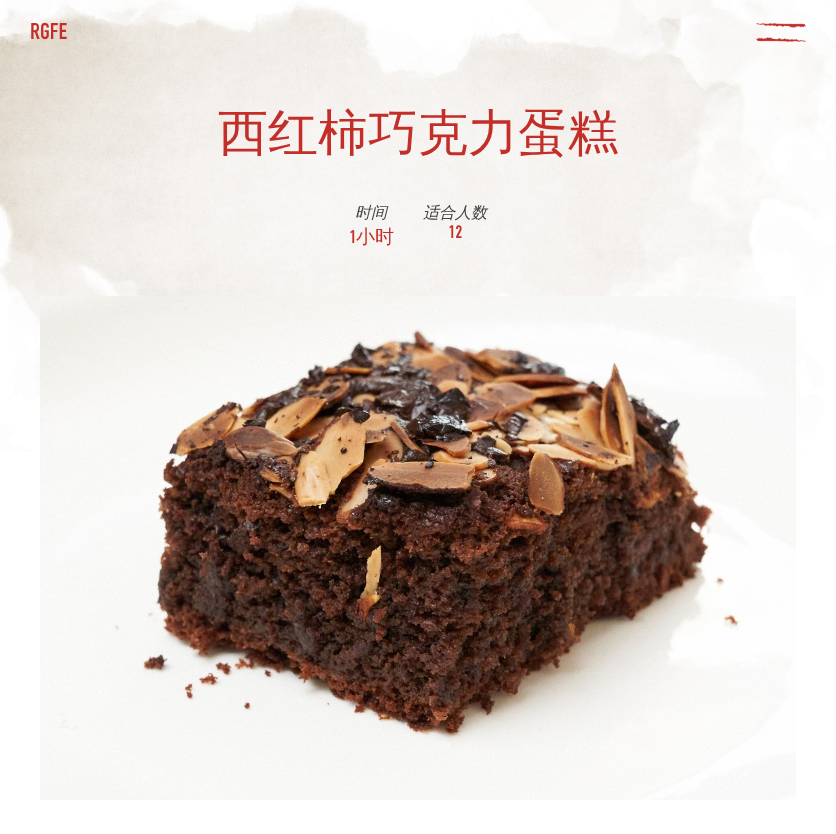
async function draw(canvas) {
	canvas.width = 836;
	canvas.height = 834;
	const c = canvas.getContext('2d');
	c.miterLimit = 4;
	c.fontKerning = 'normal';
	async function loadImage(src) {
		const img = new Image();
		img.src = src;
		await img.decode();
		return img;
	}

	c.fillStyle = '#fff';
	c.fillRect(0, 0, 836, 834);
	c.drawImage(await loadImage('img3.png'), 0, 0, 836, 452);
	c.font = '24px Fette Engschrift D';
	c.fillStyle = '#c42e29';
	c.fillText('RGFE', 30, 39);
	c.drawImage(await loadImage('img1.png'), 756, 23, 50, 5);
	c.drawImage(await loadImage('img2.png'), 756, 37, 50, 5);
	c.font = '500 50px WenQuanYi Zen Hei';
	c.fillText('西红柿巧克力蛋糕', 218, 150);
	c.font = 'italic 500 16px WenQuanYi Zen Hei';
	c.fillStyle = '#414141';
	c.fillText('时间', 355, 218);
	c.font = '19px Fette Engschrift D';
	c.fillStyle = '#c42e29';
	c.fillText('1', 349, 243);
	c.font = '500 19px WenQuanYi Zen Hei';
	c.fillText('小时', 356, 243);
	c.font = 'italic 500 16px WenQuanYi Zen Hei';
	c.fillStyle = '#414141';
	c.fillText('适合人数', 423, 218);
	c.font = '19px Fette Engschrift D';
	c.fillStyle = '#c42e29';
	c.fillText('12', 448, 238);
	c.drawImage(await loadImage('img4.png'), 40, 296, 756, 504);
}

draw(document.querySelector('canvas'));
